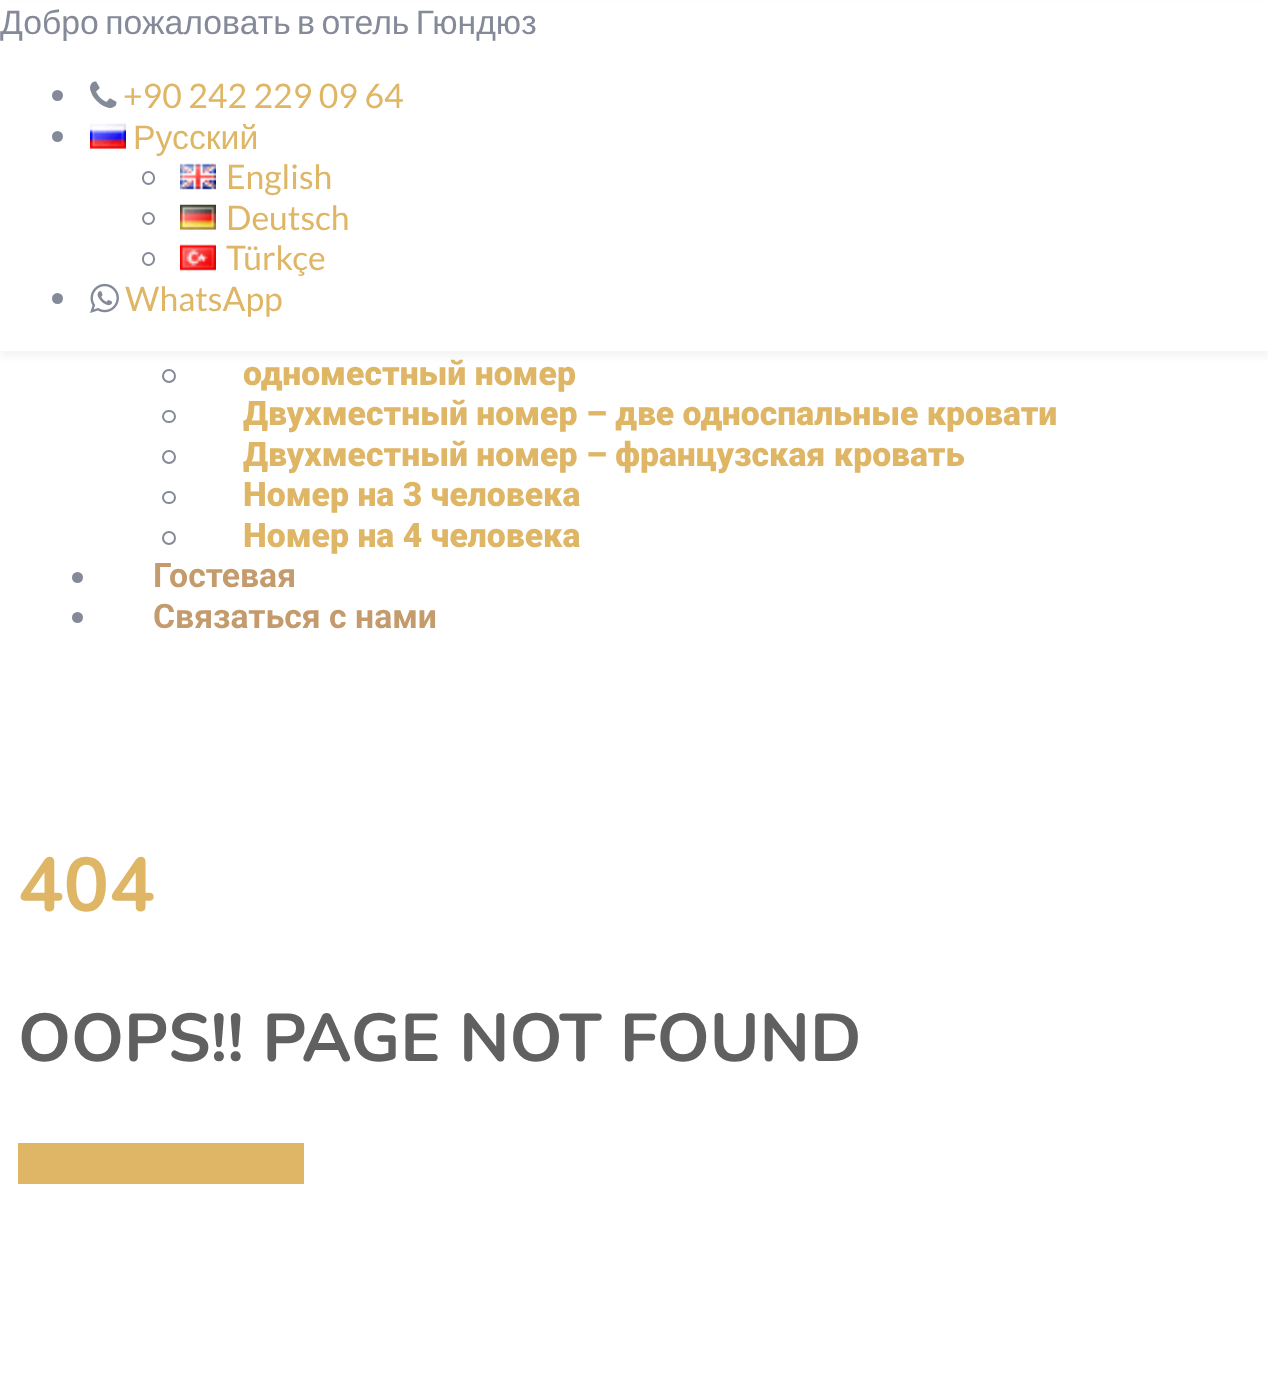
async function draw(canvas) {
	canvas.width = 1268;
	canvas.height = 1392;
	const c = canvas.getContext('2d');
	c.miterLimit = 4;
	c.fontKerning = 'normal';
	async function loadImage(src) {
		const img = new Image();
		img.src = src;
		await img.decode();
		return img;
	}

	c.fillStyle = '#fff';
	c.fillRect(0, 0, 1268, 1392);
	c.beginPath();
	c.arc(169, 376, 6, 0, 2 * Math.PI);
	c.strokeStyle = '#858a99';
	c.lineWidth = 2;
	c.stroke();
	c.fillStyle = '#0000000d';
	c.filter = 'blur(4.5px)';
	c.beginPath();
	c.rect(0, 5, 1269, 351);
	c.fill();
	c.filter = 'none';
	c.fillStyle = '#fff';
	c.fillRect(0, 1, 1268, 350);
	c.wordSpacing = '-3px';
	c.font = '33.75px Liberation Sans';
	c.fillStyle = '#858a99';
	c.fillText('Добро пожаловать в отель Гюндюз', 0, 34);
	c.beginPath();
	c.arc(57.5, 95.5, 5.5, 0, 2 * Math.PI);
	c.fill();
	c.drawImage(await loadImage('img1.png'), 90, 81, 27, 27);
	c.wordSpacing = '0px';
	c.font = '33.75px Lato';
	c.fillStyle = '#deb666';
	c.fillText('+90 242 229 09 64', 123, 108);
	c.fillStyle = '#858a99';
	c.beginPath();
	c.arc(57.5, 136.5, 5.5, 0, 2 * Math.PI);
	c.fill();
	c.drawImage(await loadImage('img2.png'), 90, 123, 36, 26);
	c.font = '33.75px Liberation Sans';
	c.fillStyle = '#deb666';
	c.fillText('Русский', 133, 149);
	c.beginPath();
	c.roundRect(143, 172, 11, 12, 5.5);
	c.stroke();
	c.drawImage(await loadImage('img3.png'), 180, 163, 36, 27);
	c.font = '33.75px Lato';
	c.fillText('English', 226, 189);
	c.beginPath();
	c.arc(148.5, 218.5, 5.5, 0, 2 * Math.PI);
	c.stroke();
	c.drawImage(await loadImage('img4.png'), 180, 204, 36, 26);
	c.fillText('Deutsch', 226, 230);
	c.beginPath();
	c.roundRect(143, 253, 11, 12, 5.5);
	c.stroke();
	c.drawImage(await loadImage('img5.png'), 180, 244, 36, 27);
	c.fillText('Türkçe', 226, 270);
	c.fillStyle = '#858a99';
	c.beginPath();
	c.arc(57.5, 298.5, 5.5, 0, 2 * Math.PI);
	c.fill();
	c.drawImage(await loadImage('img6.png'), 90, 283, 29, 30);
	c.fillStyle = '#deb666';
	c.fillText('WhatsApp', 125, 311);
	c.font = '900 33.75px Roboto';
	c.fillText('одноместный номер', 243, 385);
	c.beginPath();
	c.roundRect(163, 411, 12, 11, 5.5);
	c.stroke();
	c.fillText('Двухместный номер – две односпальные кровати', 243, 425);
	c.beginPath();
	c.arc(169, 457, 6, 0, 2 * Math.PI);
	c.stroke();
	c.fillText('Двухместный номер – французская кровать', 243, 466);
	c.beginPath();
	c.roundRect(163, 492, 12, 11, 5.5);
	c.stroke();
	c.fillText('Номер на 3 человека', 243, 506);
	c.beginPath();
	c.arc(169, 538, 6, 0, 2 * Math.PI);
	c.stroke();
	c.fillText('Номер на 4 человека', 243, 547);
	c.fillStyle = '#858a99';
	c.beginPath();
	c.arc(77.5, 577.5, 5.5, 0, 2 * Math.PI);
	c.fill();
	c.font = 'bold 33.75px Roboto';
	c.fillStyle = '#c49b6c';
	c.fillText('Гостевая', 153, 587);
	c.fillStyle = '#858a99';
	c.beginPath();
	c.arc(77.5, 617.5, 5.5, 0, 2 * Math.PI);
	c.fill();
	c.fillStyle = '#c49b6c';
	c.fillText('Связаться с нами', 153, 628);
	c.font = 'bold 76px Nunito';
	c.fillStyle = '#deb666';
	c.fillText('404', 18, 911);
	c.font = 'bold 67.5px Nunito';
	c.fillStyle = '#606060';
	c.fillText('OOPS!! PAGE NOT FOUND', 18, 1061);
	c.fillStyle = '#deb666';
	c.fillRect(18, 1143, 286, 41);
}

draw(document.querySelector('canvas'));
